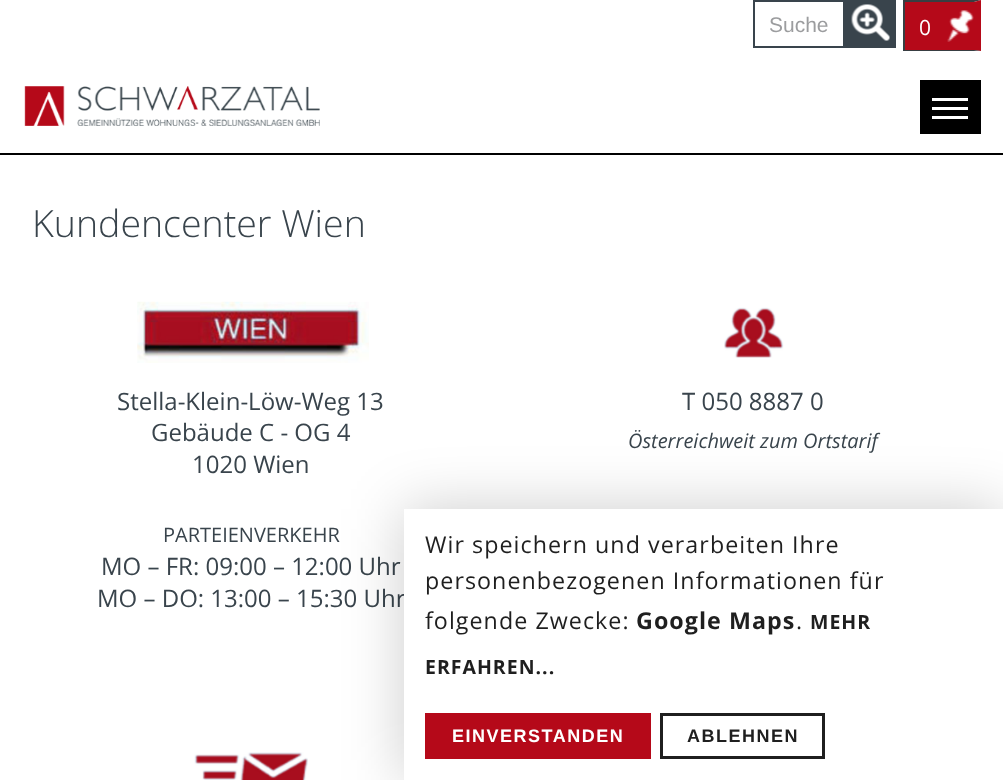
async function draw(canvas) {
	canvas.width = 1003;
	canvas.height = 780;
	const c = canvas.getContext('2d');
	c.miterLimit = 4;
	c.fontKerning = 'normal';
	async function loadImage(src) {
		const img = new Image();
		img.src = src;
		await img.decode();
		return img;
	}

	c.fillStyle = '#fff';
	c.fillRect(0, 0, 1003, 780);
	c.strokeStyle = '#39444c';
	c.lineWidth = 2;
	c.strokeRect(754, 1, 141, 46);
	c.fillStyle = '#39444c';
	c.fillRect(843, 2, 51, 44);
	c.font = '21px Liberation Sans';
	c.fillStyle = '#9c9d9f';
	c.fillText('Suche', 769, 32);
	c.drawImage(await loadImage('img1.png'), 851, 4, 39, 37);
	c.fillStyle = '#b50919';
	c.fillRect(905, 2, 69, 48);
	c.drawImage(await loadImage('img2.png'), 947, 10, 27, 32);
	c.fillStyle = '#383e42';
	c.beginPath();
	c.moveTo(903, 0);
	c.lineTo(981, 0);
	c.lineTo(974, 2);
	c.lineTo(904, 2);
	c.closePath();
	c.fill();
	c.fillStyle = '#b50919';
	c.beginPath();
	c.moveTo(981, 0);
	c.lineTo(981, 51);
	c.lineTo(974, 50);
	c.lineTo(974, 2);
	c.closePath();
	c.fill();
	c.fillStyle = '#383e42';
	c.beginPath();
	c.moveTo(981, 51);
	c.lineTo(903, 51);
	c.lineTo(904, 50);
	c.lineTo(974, 50);
	c.closePath();
	c.fill();
	c.fillRect(903, 0, 2, 51);
	c.letterSpacing = '2px';
	c.font = '21px Open Sans';
	c.fillStyle = '#fff';
	c.fillText('0', 919, 35);
	for (const [x, y, w, h, color] of [
		[920, 80, 61, 54, '#000'],
		[932, 98, 36, 3, '#fff'],
		[932, 107, 36, 3, '#fff'],
		[932, 116, 36, 3, '#fff'],
	]) {
		c.fillStyle = color;
		c.fillRect(x, y, w, h);
	}
	c.drawImage(await loadImage('img3.png'), 24, 86, 296, 40);
	c.fillStyle = '#000';
	c.fillRect(0, 153, 1003, 2);
	c.letterSpacing = '0px';
	c.font = '300 37.5px Open Sans';
	c.fillStyle = '#39444c';
	c.fillText('Kundencenter Wien', 32, 237);
	c.drawImage(await loadImage('img4.png'), 137, 301, 232, 62);
	c.font = '24px Open Sans';
	for (const [text, x, y] of [
		['Stella-Klein-Löw-Weg 13', 117, 410],
		['Gebäude C - OG 4', 151, 441],
		['1020 Wien', 192, 473],
	]) {
		c.fillText(text, x, y);
	}
	c.font = '20px Open Sans';
	c.fillText('PARTEIENVERKEHR', 163, 542);
	c.font = '24px Open Sans';
	c.fillText('MO – FR: 09:00 – 12:00 Uhr', 101, 575);
	c.fillText('MO – DO: 13:00 – 15:30 Uhr', 97, 607);
	c.drawImage(await loadImage('img5.png'), 724, 307, 60, 51);
	c.fillText('T 050 8887 0', 682, 410);
	c.font = 'italic 20px Open Sans';
	c.fillText('Österreichweit zum Ortstarif', 628, 448);
	c.drawImage(await loadImage('img6.png'), 194, 752, 114, 28);
	c.fillStyle = '#00000033';
	c.filter = 'blur(30px)';
	c.beginPath();
	c.rect(404, 509, 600, 271);
	c.fill();
	c.filter = 'none';
	c.fillStyle = '#fff';
	c.fillRect(404, 509, 599, 271);
	c.letterSpacing = '1.05px';
	c.font = '23.25px Open Sans';
	c.fillStyle = '#1f1f1f';
	for (const [text, x, y] of [
		['Wir speichern und verarbeiten Ihre', 425, 553],
		['personenbezogenen Informationen für', 425, 589],
		['folgende Zwecke:', 425, 629],
	]) {
		c.fillText(text, x, y);
	}
	c.font = 'bold 23.25px Open Sans';
	c.fillText('Google Maps', 636, 629);
	c.font = '23.25px Open Sans';
	c.fillText('.', 796, 629);
	c.letterSpacing = '1px';
	c.font = 'bold 19.5px Open Sans';
	c.fillText('MEHR', 810, 629);
	c.fillText('ERFAHREN...', 425, 674);
	c.fillStyle = '#b50919';
	c.fillRect(425, 713, 226, 46);
	c.letterSpacing = '1.5px';
	c.font = 'bold 18px Liberation Sans';
	c.fillStyle = '#fff';
	c.fillText('EINVERSTANDEN', 452, 742);
	c.strokeStyle = '#1f1f1f';
	c.lineWidth = 3;
	c.strokeRect(661.5, 714.5, 162, 43);
	c.fillStyle = '#1f1f1f';
	c.fillText('ABLEHNEN', 687, 742);
}

draw(document.querySelector('canvas'));
